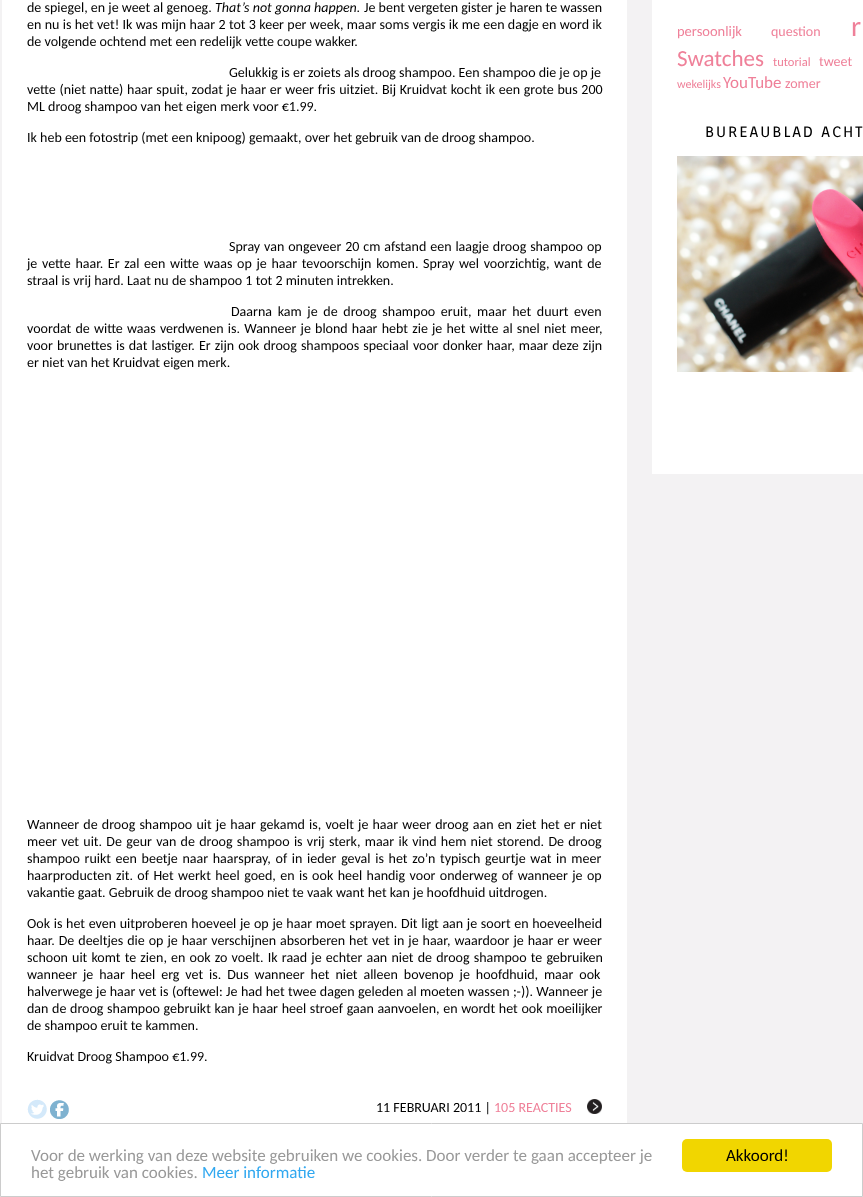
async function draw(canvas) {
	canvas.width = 863;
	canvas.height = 1197;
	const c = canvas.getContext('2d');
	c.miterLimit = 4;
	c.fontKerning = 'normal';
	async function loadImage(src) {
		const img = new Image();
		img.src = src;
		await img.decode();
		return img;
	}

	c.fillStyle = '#f3f2f3';
	c.fillRect(0, 0, 863, 1197);
	c.fillStyle = '#fff';
	c.fillRect(2, 0, 625, 1123);
	c.font = '14px Carlito';
	c.fillStyle = '#000';
	c.fillText('de spiegel, en je weet al genoeg.', 27, 12);
	c.font = 'italic 14px Carlito';
	c.fillText('That’s not gonna happen.', 215, 12);
	c.font = '14px Carlito';
	c.fillText('Je bent vergeten gister je haren te wassen', 364, 12);
	c.wordSpacing = '0.15px';
	c.fillText('en nu is het vet! Ik was mijn haar 2 tot 3 keer per week, maar soms vergis ik me een dagje en word ik', 27, 29);
	c.wordSpacing = '0px';
	c.fillText('de volgende ochtend met een redelijk vette coupe wakker.', 27, 46);
	c.fillText('Gelukkig is er zoiets als droog shampoo. Een shampoo die je op je', 229, 77);
	c.wordSpacing = '0.5px';
	c.fillText('vette (niet natte) haar spuit, zodat je haar er weer fris uitziet. Bij Kruidvat kocht ik een grote bus 200', 27, 94);
	c.wordSpacing = '0px';
	c.fillText('ML droog shampoo van het eigen merk voor €1.99.', 27, 111);
	c.fillText('Ik heb een fotostrip (met een knipoog) gemaakt, over het gebruik van de droog shampoo.', 27, 142);
	c.wordSpacing = '0.75px';
	c.fillText('Spray van ongeveer 20 cm afstand een laagje droog shampoo op', 229, 251);
	c.wordSpacing = '1.5px';
	c.fillText('je vette haar. Er zal een witte waas op je haar tevoorschijn komen. Spray wel voorzichtig, want de', 27, 268);
	c.wordSpacing = '0px';
	c.fillText('straal is vrij hard. Laat nu de shampoo 1 tot 2 minuten intrekken.', 27, 285);
	c.wordSpacing = '2.5px';
	c.fillText('Daarna kam je de droog shampoo eruit, maar het duurt even', 231, 316);
	c.wordSpacing = '1px';
	c.fillText('voordat de witte waas verdwenen is. Wanneer je blond haar hebt zie je het witte al snel niet meer,', 27, 333);
	c.wordSpacing = '0.9px';
	c.fillText('voor brunettes is dat lastiger. Er zijn ook droog shampoos speciaal voor donker haar, maar deze zijn', 27, 350);
	c.wordSpacing = '0px';
	c.fillText('er niet van het Kruidvat eigen merk.', 27, 367);
	c.wordSpacing = '1px';
	c.fillText('Wanneer de droog shampoo uit je haar gekamd is, voelt je haar weer droog aan en ziet het er niet', 27, 829);
	c.wordSpacing = '1.1px';
	c.fillText('meer vet uit. De geur van de droog shampoo is vrij sterk, maar ik vind hem niet storend. De droog', 27, 846);
	c.wordSpacing = '1.5px';
	c.fillText('shampoo ruikt een beetje naar haarspray, of in ieder geval is het zo’n typisch geurtje wat in meer', 27, 863);
	c.wordSpacing = '1.25px';
	c.fillText('haarproducten zit. of Het werkt heel goed, en is ook heel handig voor onderweg of wanneer je op', 27, 880);
	c.wordSpacing = '0px';
	c.fillText('vakantie gaat. Gebruik de droog shampoo niet te vaak want het kan je hoofdhuid uitdrogen.', 27, 897);
	c.wordSpacing = '0.5px';
	c.fillText('Ook is het even uitproberen hoeveel je op je haar moet sprayen. Dit ligt aan je soort en hoeveelheid', 27, 928);
	c.wordSpacing = '0.8px';
	c.fillText('haar. De deeltjes die op je haar verschijnen absorberen het vet in je haar, waardoor je haar er weer', 27, 945);
	c.wordSpacing = '1px';
	c.fillText('schoon uit komt te zien, en ook zo voelt. Ik raad je echter aan niet de droog shampoo te gebruiken', 27, 962);
	c.wordSpacing = '2.75px';
	c.fillText('wanneer je haar heel erg vet is. Dus wanneer het niet alleen bovenop je hoofdhuid, maar ook', 27, 979);
	c.wordSpacing = '0.2px';
	c.fillText('halverwege je haar vet is (oftewel: Je had het twee dagen geleden al moeten wassen ;-)). Wanneer je', 27, 996);
	c.wordSpacing = '0.5px';
	c.fillText('dan de droog shampoo gebruikt kan je haar heel stroef gaan aanvoelen, en wordt het ook moeilijker', 27, 1013);
	c.wordSpacing = '0px';
	c.fillText('de shampoo eruit te kammen.', 27, 1030);
	c.fillText('Kruidvat Droog Shampoo €1.99.', 27, 1061);
	c.drawImage(await loadImage('img1.png'), 27, 1099, 20, 20);
	c.drawImage(await loadImage('img2.png'), 50, 1100, 19, 19);
	c.fillText('11 FEBRUARI 2011 |', 376, 1112);
	c.fillStyle = '#ef8099';
	c.fillText('105 REACTIES', 494, 1112);
	c.drawImage(await loadImage('img3.png'), 587, 1099, 15, 15);
	c.fillStyle = '#fff';
	c.fillRect(652, 0, 211, 474);
	c.font = '14.5px Carlito';
	c.fillStyle = '#ef8099';
	c.fillText('persoonlijk', 677, 36);
	c.font = '14px Carlito';
	c.fillText('question', 771, 36);
	c.font = '29px Carlito';
	c.fillText('r', 851, 36);
	c.font = '23px Carlito';
	c.fillText('Swatches', 677, 66);
	c.font = '12.5px Carlito';
	c.fillText('tutorial', 773, 66);
	c.font = '14px Carlito';
	c.fillText('tweet', 819, 66);
	c.font = '12px Carlito';
	c.fillText('wekelijks', 677, 88);
	c.font = '17px Carlito';
	c.fillText('YouTube', 723, 88);
	c.font = '14px Carlito';
	c.fillText('zomer', 785, 88);
	c.letterSpacing = '2px';
	c.font = '15px Orienta';
	c.fillStyle = '#000';
	c.fillText('BUREAUBLAD ACHT', 705, 137);
	c.drawImage(await loadImage('img4.png'), 677, 156, 186, 216);
	c.fillStyle = '#fff';
	c.beginPath();
	c.rect(0.5, 1123.5, 862, 73);
	c.fill();
	c.strokeStyle = '#ccc';
	c.stroke();
	c.letterSpacing = '0px';
	c.font = '17px Carlito';
	c.fillStyle = '#999';
	c.fillText('Voor de werking van deze website gebruiken we cookies. Door verder te gaan accepteer je', 31, 1161);
	c.fillText('het gebruik van cookies.', 31, 1178);
	c.fillStyle = '#31a8f0';
	c.fillText('Meer informatie', 202, 1178);
	c.fillStyle = '#f1d600';
	c.beginPath();
	c.roundRect(682, 1139, 150, 33, 5);
	c.fill();
	c.fillStyle = '#000';
	c.fillText('Akkoord!', 726, 1161);
}

draw(document.querySelector('canvas'));
